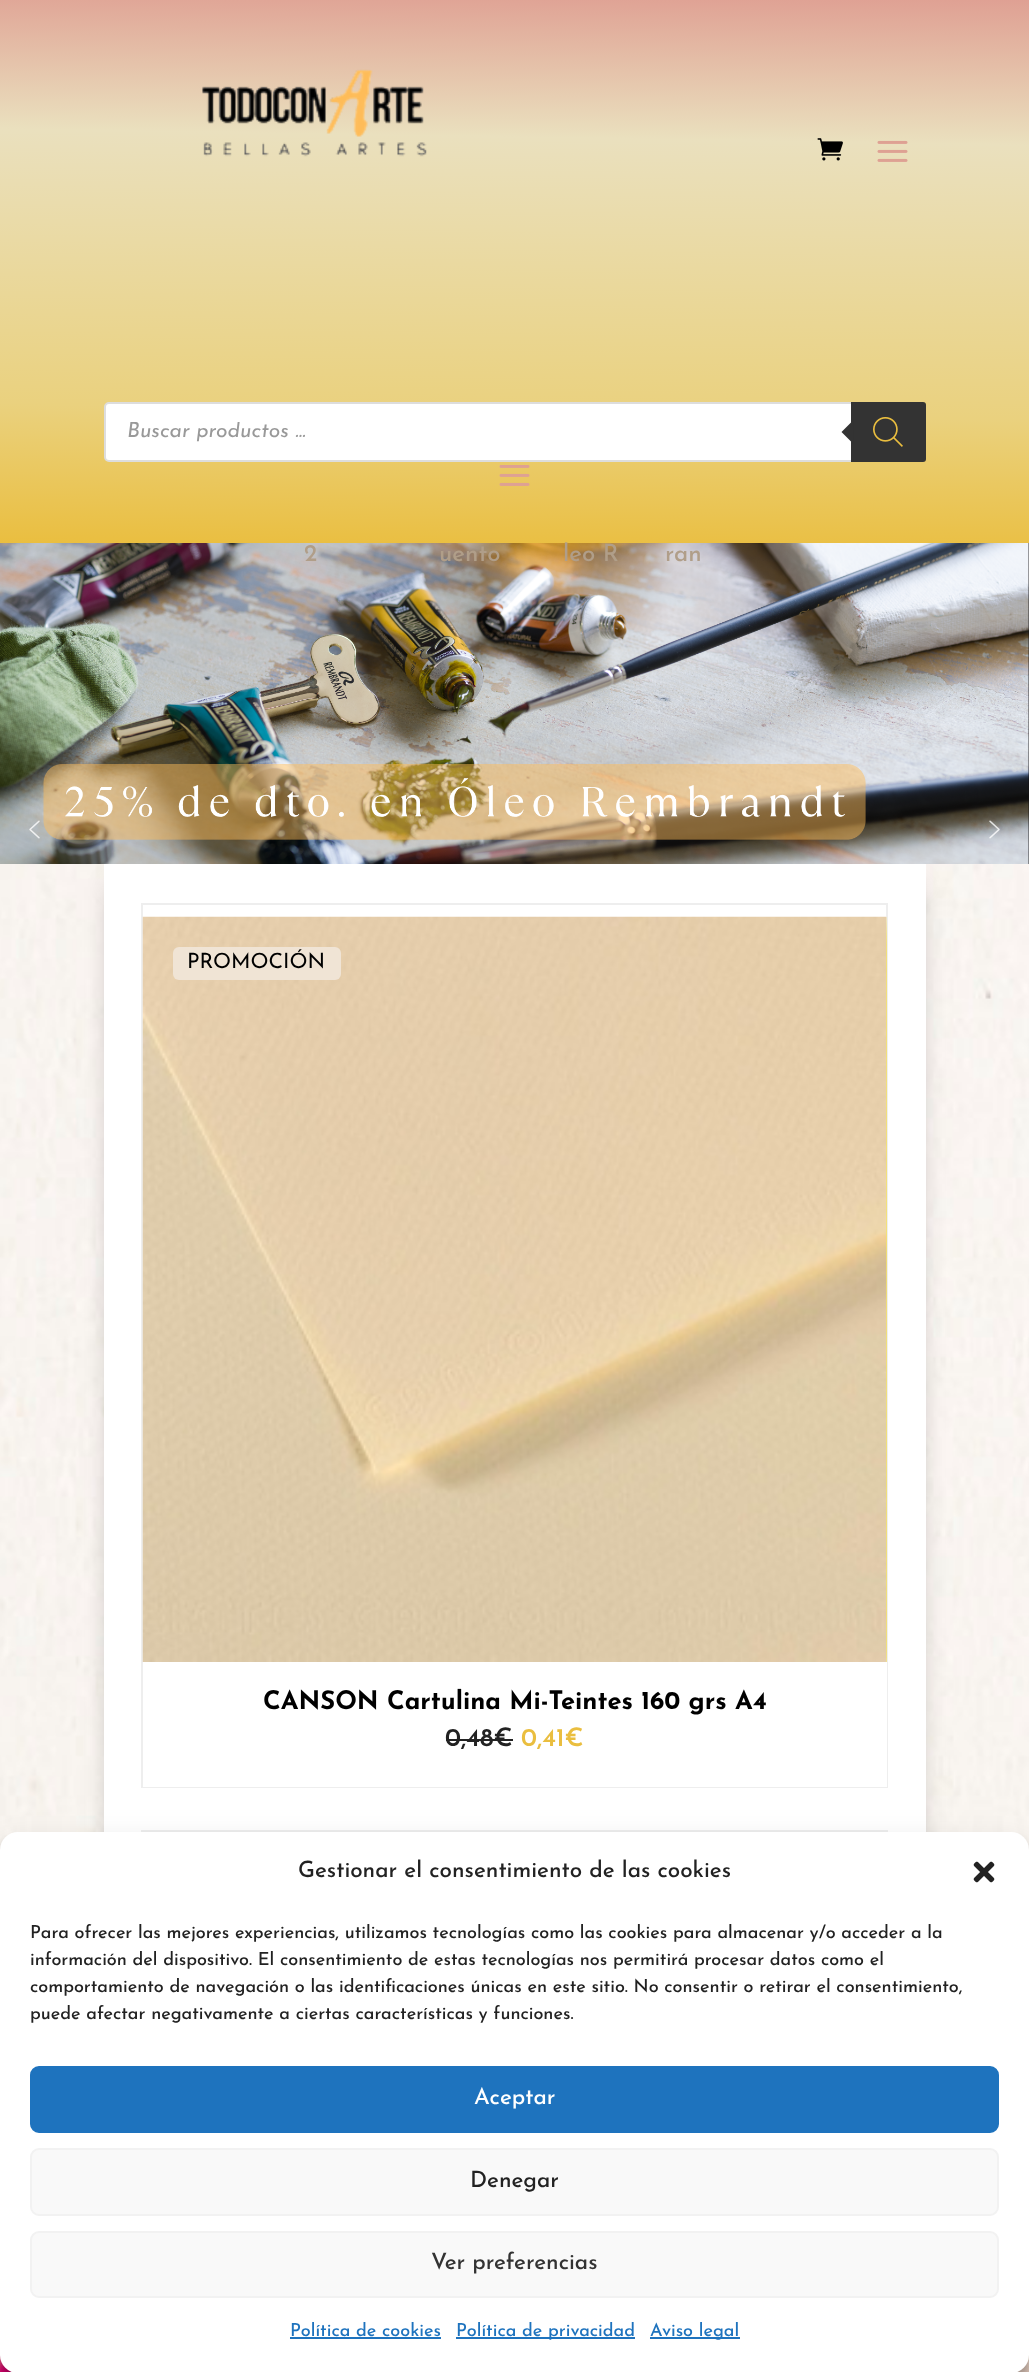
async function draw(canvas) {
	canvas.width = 1029;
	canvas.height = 2372;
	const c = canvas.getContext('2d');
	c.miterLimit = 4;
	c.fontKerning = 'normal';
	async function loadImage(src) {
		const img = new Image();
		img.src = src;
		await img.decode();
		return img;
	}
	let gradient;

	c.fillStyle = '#fff';
	c.fillRect(0, 0, 1029, 2372);
	gradient = c.createLinearGradient(510, 552, 519, -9);
	gradient.addColorStop(0, '#eabe3f');
	gradient.addColorStop(0.25, '#ead17e');
	gradient.addColorStop(0.74, '#eae0be');
	gradient.addColorStop(1, '#dfa093');
	c.fillStyle = gradient;
	c.fillRect(0, 0, 1029, 543);
	c.drawImage(await loadImage('img1.png'), 202, 69, 225, 88);
	c.drawImage(await loadImage('img2.png'), 817, 138, 26, 23);
	c.drawImage(await loadImage('img3.png'), 877, 140, 31, 22);
	c.fillStyle = '#fff';
	c.beginPath();
	c.roundRect(105, 403, 820, 58, 4);
	c.fill();
	c.strokeStyle = '#ddd';
	c.lineWidth = 2;
	c.stroke();
	c.save();
	c.beginPath();
	c.rect(128, 422, 774, 22);
	c.clip();
	c.font = 'italic 21px Josefin Sans';
	c.fillStyle = '#999';
	c.fillText('Buscar productos ...', 127, 437);
	c.restore();
	c.fillStyle = '#333';
	c.beginPath();
	c.roundRect(851, 402, 75, 60, [0, 3, 3, 0]);
	c.fill();
	c.beginPath();
	c.moveTo(853.5, 420);
	c.lineTo(853.5, 444);
	c.lineTo(841.5, 432);
	c.closePath();
	c.fill();
	c.drawImage(await loadImage('img4.png'), 873, 416, 30, 31);
	c.drawImage(await loadImage('img5.png'), 499, 465, 31, 21);
	c.drawImage(await loadImage('img9.png'), 0, 864, 1029, 1508);
	c.fillStyle = '#0000004d';
	c.filter = 'blur(13.5px)';
	c.beginPath();
	c.rect(113, 887, 804, 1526);
	c.fill();
	c.filter = 'none';
	c.drawImage(await loadImage('img6.png'), 0, 543, 1029, 321);
	c.font = '500 24px Josefin Sans';
	c.fillStyle = '#b09e89';
	for (const [text, x, y] of [
		['2', 304, 561],
		['uento', 439, 561],
		['leo R', 563, 561],
		['ran', 665, 561],
	]) {
		c.fillText(text, x, y);
	}
	c.drawImage(await loadImage('img7.png'), 29, 820, 11, 19);
	c.drawImage(await loadImage('img8.png'), 989, 820, 11, 19);
	c.fillStyle = '#fff';
	c.fillRect(104, 864, 822, 968);
	c.strokeStyle = '#eee';
	c.strokeRect(142, 904, 745, 883);
	c.fillRect(143, 1662, 744, 125);
	c.save();
	c.beginPath();
	c.rect(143, 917, 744, 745);
	c.clip();
	c.fillStyle = '#f6e344';
	c.filter = 'blur(13.5px)';
	c.beginPath();
	c.rect(152, 926, 744, 745);
	c.fill();
	c.filter = 'none';
	c.restore();
	c.drawImage(await loadImage('img10.png'), 142, 916, 745, 746);
	c.fillStyle = '#f0e4d5';
	c.beginPath();
	c.roundRect(173, 947, 168, 33, 6);
	c.fill();
	c.font = '21px Josefin Sans';
	c.fillStyle = '#000';
	c.fillText('PROMOCIÓN', 187, 968);
	c.font = 'bold 25.5px Josefin Sans';
	c.fillText('CANSON Cartulina Mi-Teintes 160 grs A4', 263, 1709);
	c.font = '600 25.5px Josefin Sans';
	c.fillStyle = '#222';
	c.fillText('0,48€', 445, 1746);
	c.fillRect(446, 1739, 67, 2);
	c.fillStyle = '#eabe3f';
	c.fillText('0,41€', 521, 1746);
	c.strokeRect(142, 1831, 745, 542);
	c.fillStyle = '#0000003b';
	c.filter = 'blur(4.5px)';
	c.beginPath();
	c.roundRect(0, 1841, 1029, 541, 18);
	c.fill();
	c.filter = 'none';
	c.fillStyle = '#00000030';
	c.filter = 'blur(15px)';
	c.beginPath();
	c.roundRect(0, 1847, 1029, 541, 18);
	c.fill();
	c.filter = 'none';
	c.fillStyle = '#fff';
	c.beginPath();
	c.roundRect(0, 1832, 1029, 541, 18);
	c.fill();
	c.font = '500 22.5px Josefin Sans';
	c.fillStyle = '#222';
	c.fillText('Gestionar el consentimiento de las cookies', 298, 1877);
	c.drawImage(await loadImage('img11.png'), 973, 1861, 22, 22);
	c.font = '500 18px Josefin Sans';
	for (const [text, x, y] of [
		['Para ofrecer las mejores experiencias, utilizamos tecnologías como las cookies para almacenar y/o acceder a la', 30, 1938],
		['información del dispositivo. El consentimiento de estas tecnologías nos permitirá procesar datos como el', 30, 1965],
		['comportamiento de navegación o las identificaciones únicas en este sitio. No consentir o retirar el consentimiento,', 30, 1992],
		['puede afectar negativamente a ciertas características y funciones.', 30, 2019],
	]) {
		c.fillText(text, x, y);
	}
	c.fillStyle = '#1e73be';
	c.beginPath();
	c.roundRect(31, 2067, 967, 65, 8);
	c.fill();
	c.strokeStyle = '#1e73be';
	c.stroke();
	c.font = '500 22.5px Josefin Sans';
	c.fillStyle = '#fff';
	c.fillText('Aceptar', 474, 2104);
	c.fillStyle = '#f9f9f9';
	c.beginPath();
	c.roundRect(31, 2149, 967, 66, 8);
	c.fill();
	c.strokeStyle = '#f2f2f2';
	c.stroke();
	c.fillStyle = '#222';
	c.fillText('Denegar', 470, 2187);
	c.fillStyle = '#f9f9f9';
	c.beginPath();
	c.roundRect(31, 2232, 967, 65, 8);
	c.fill();
	c.stroke();
	c.fillStyle = '#333';
	c.fillText('Ver preferencias', 431, 2269);
	c.font = '500 18px Josefin Sans';
	c.fillStyle = '#1e73be';
	c.fillText('Política de cookies', 290, 2336);
	c.fillRect(290, 2337, 151, 2);
	c.fillRect(456, 2337, 179, 2);
	c.fillText('Política de privacidad', 456, 2336);
	c.fillRect(650, 2337, 90, 2);
	c.fillText('Aviso legal', 650, 2336);
}

draw(document.querySelector('canvas'));
